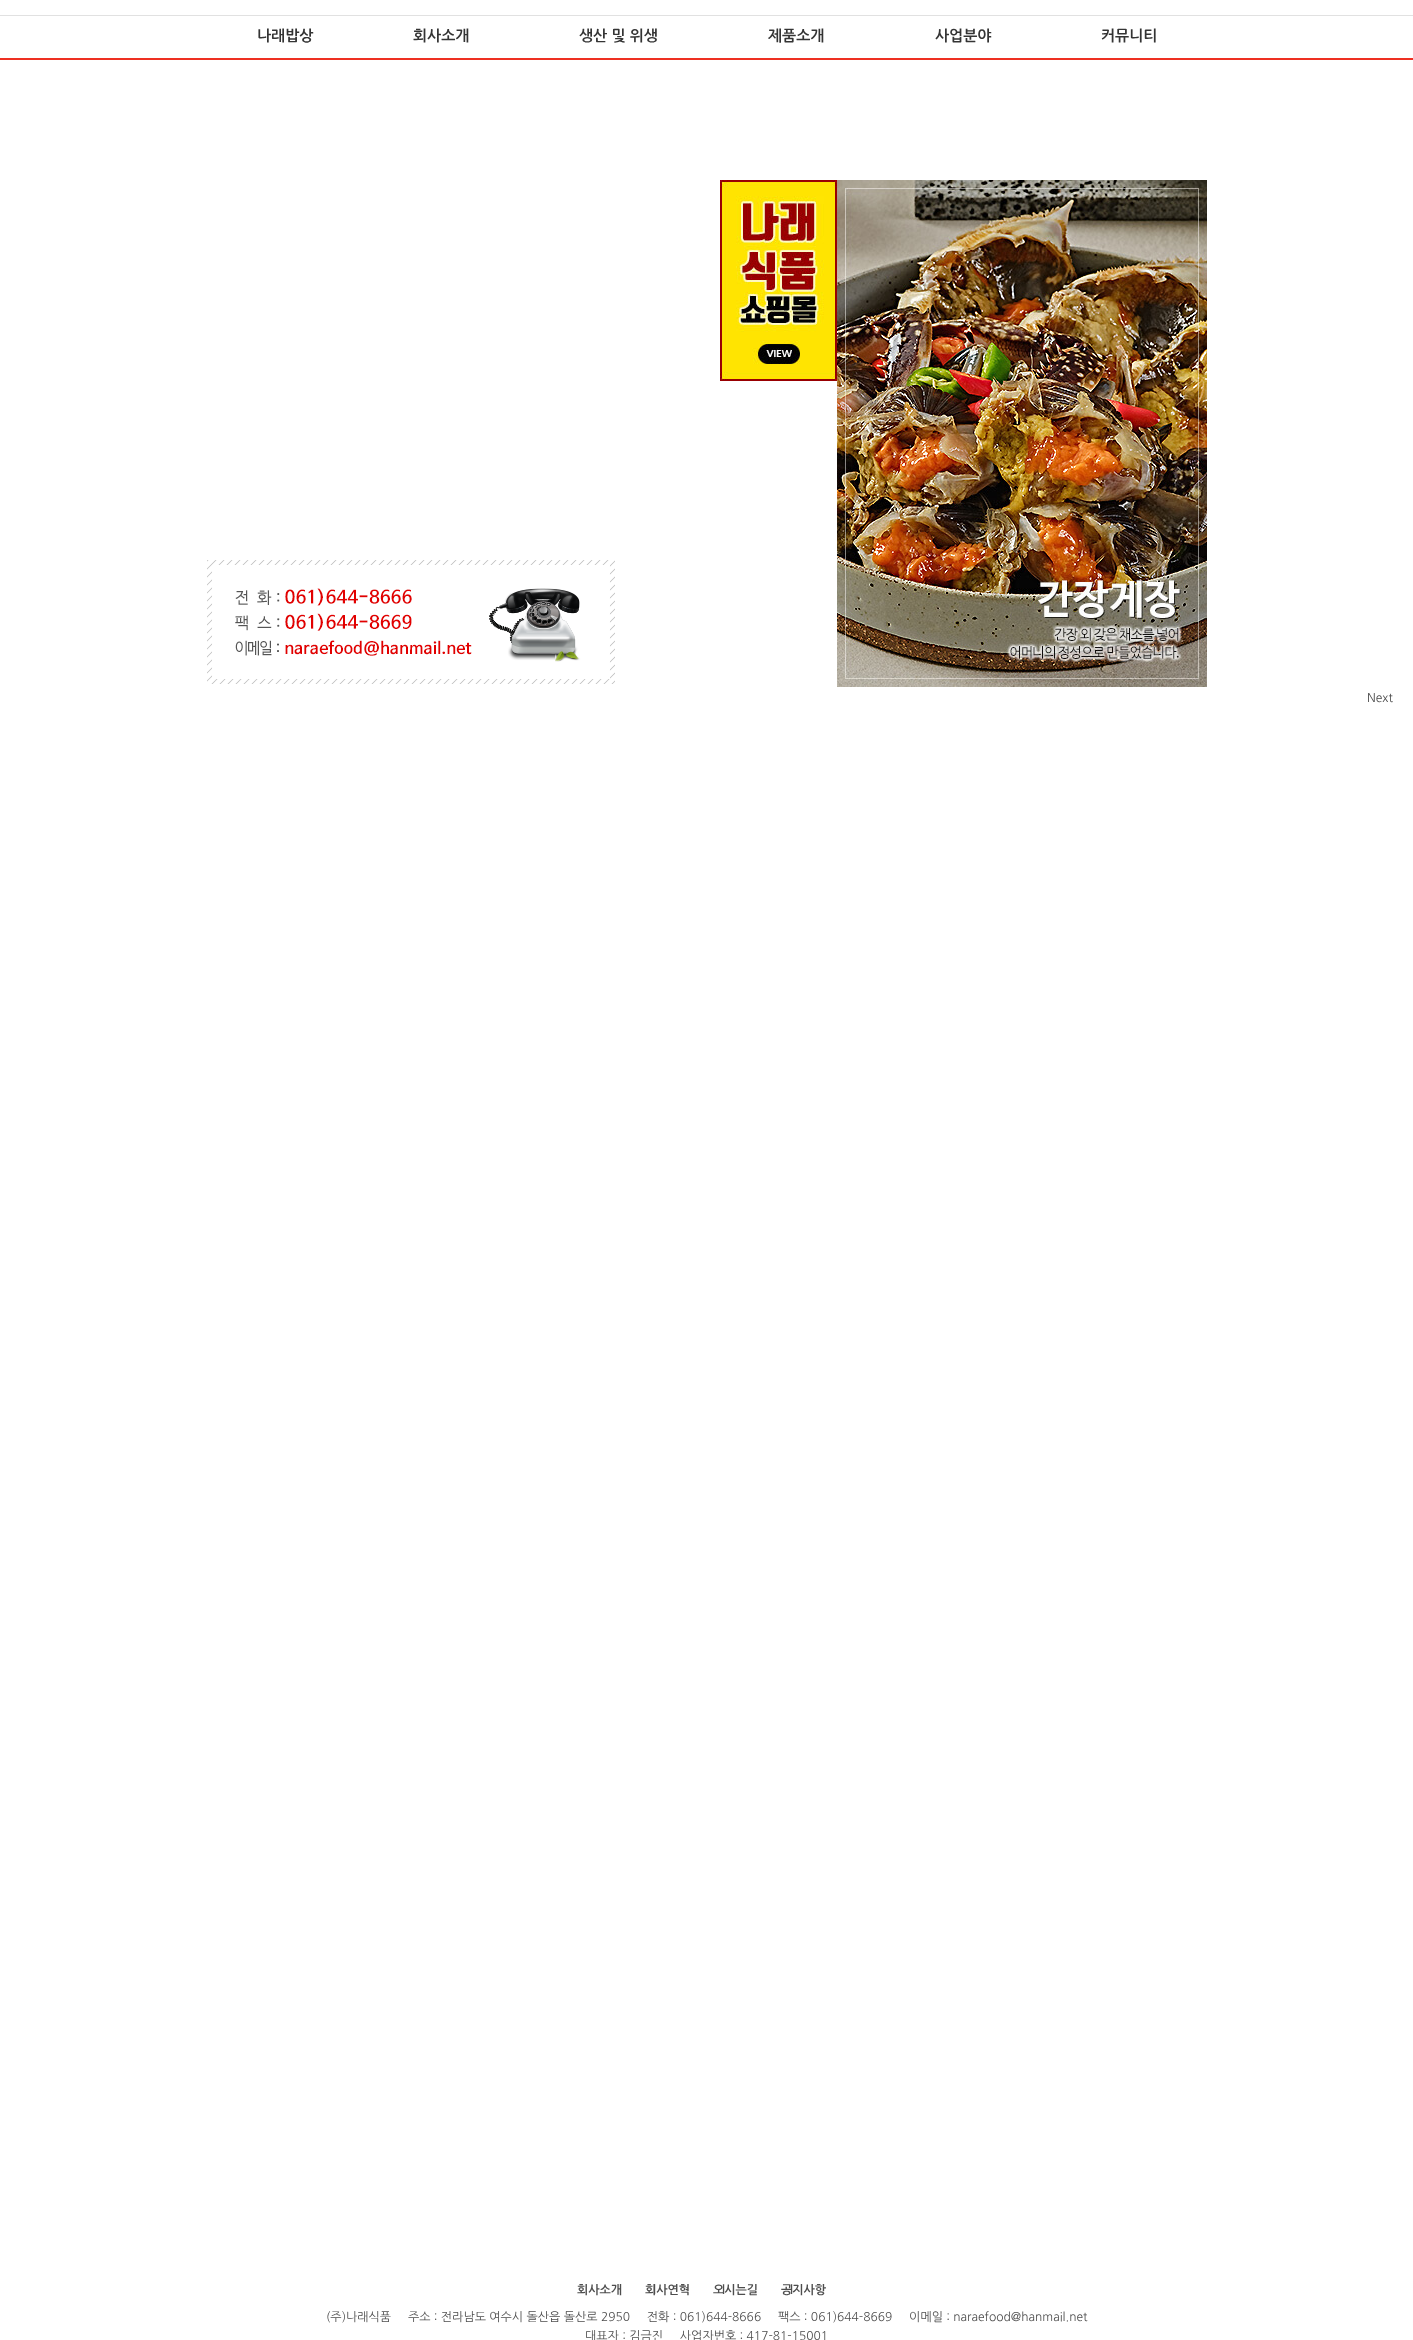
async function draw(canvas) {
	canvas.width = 1413;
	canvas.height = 2340;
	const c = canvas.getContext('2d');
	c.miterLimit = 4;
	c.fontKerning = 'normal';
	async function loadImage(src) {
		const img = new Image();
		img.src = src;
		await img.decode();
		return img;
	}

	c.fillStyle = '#fff';
	c.fillRect(0, 0, 1413, 2340);
	c.drawImage(await loadImage('img1.png'), 0, 15, 1413, 45);
	c.font = 'bold 15px NanumGothic';
	c.fillStyle = '#343434';
	for (const [text, x, y] of [
		['나래밥상', 257, 41],
		['회사소개', 413, 41],
		['생산 및 위생', 579, 41],
		['제품소개', 768, 41],
		['사업분야', 935, 41],
		['커뮤니티', 1101, 41],
	]) {
		c.fillText(text, x, y);
	}
	c.drawImage(await loadImage('img2.png'), 720, 180, 117, 201);
	c.drawImage(await loadImage('img3.png'), 207, 560, 408, 124);
	c.drawImage(await loadImage('img4.png'), 837, 180, 370, 507);
	c.font = '12px NanumGothic';
	c.fillStyle = '#484848';
	c.fillText('Next', 1367, 702);
	c.font = 'bold 12px NanumGothic';
	c.fillStyle = '#4e4e4e';
	for (const [text, x, y] of [
		['회사소개', 577, 2294],
		['l', 653, 2294],
		['회사연혁', 645, 2294],
		['l', 722, 2294],
		['오시는길', 713, 2294],
		['l', 790, 2294],
		['공지사항', 781, 2294],
	]) {
		c.fillText(text, x, y);
	}
	c.font = '12px NanumGothic';
	c.fillText('(주)나래식품     주소 : 전라남도 여수시 돌산읍 돌산로 2950     전화 : 061)644-8666     팩스 : 061)644-8669     이메일 : naraefood@hanmail.net', 326, 2321);
	c.fillText('대표자 : 김금진     사업자번호 : 417-81-15001', 585, 2340);
}

draw(document.querySelector('canvas'));
